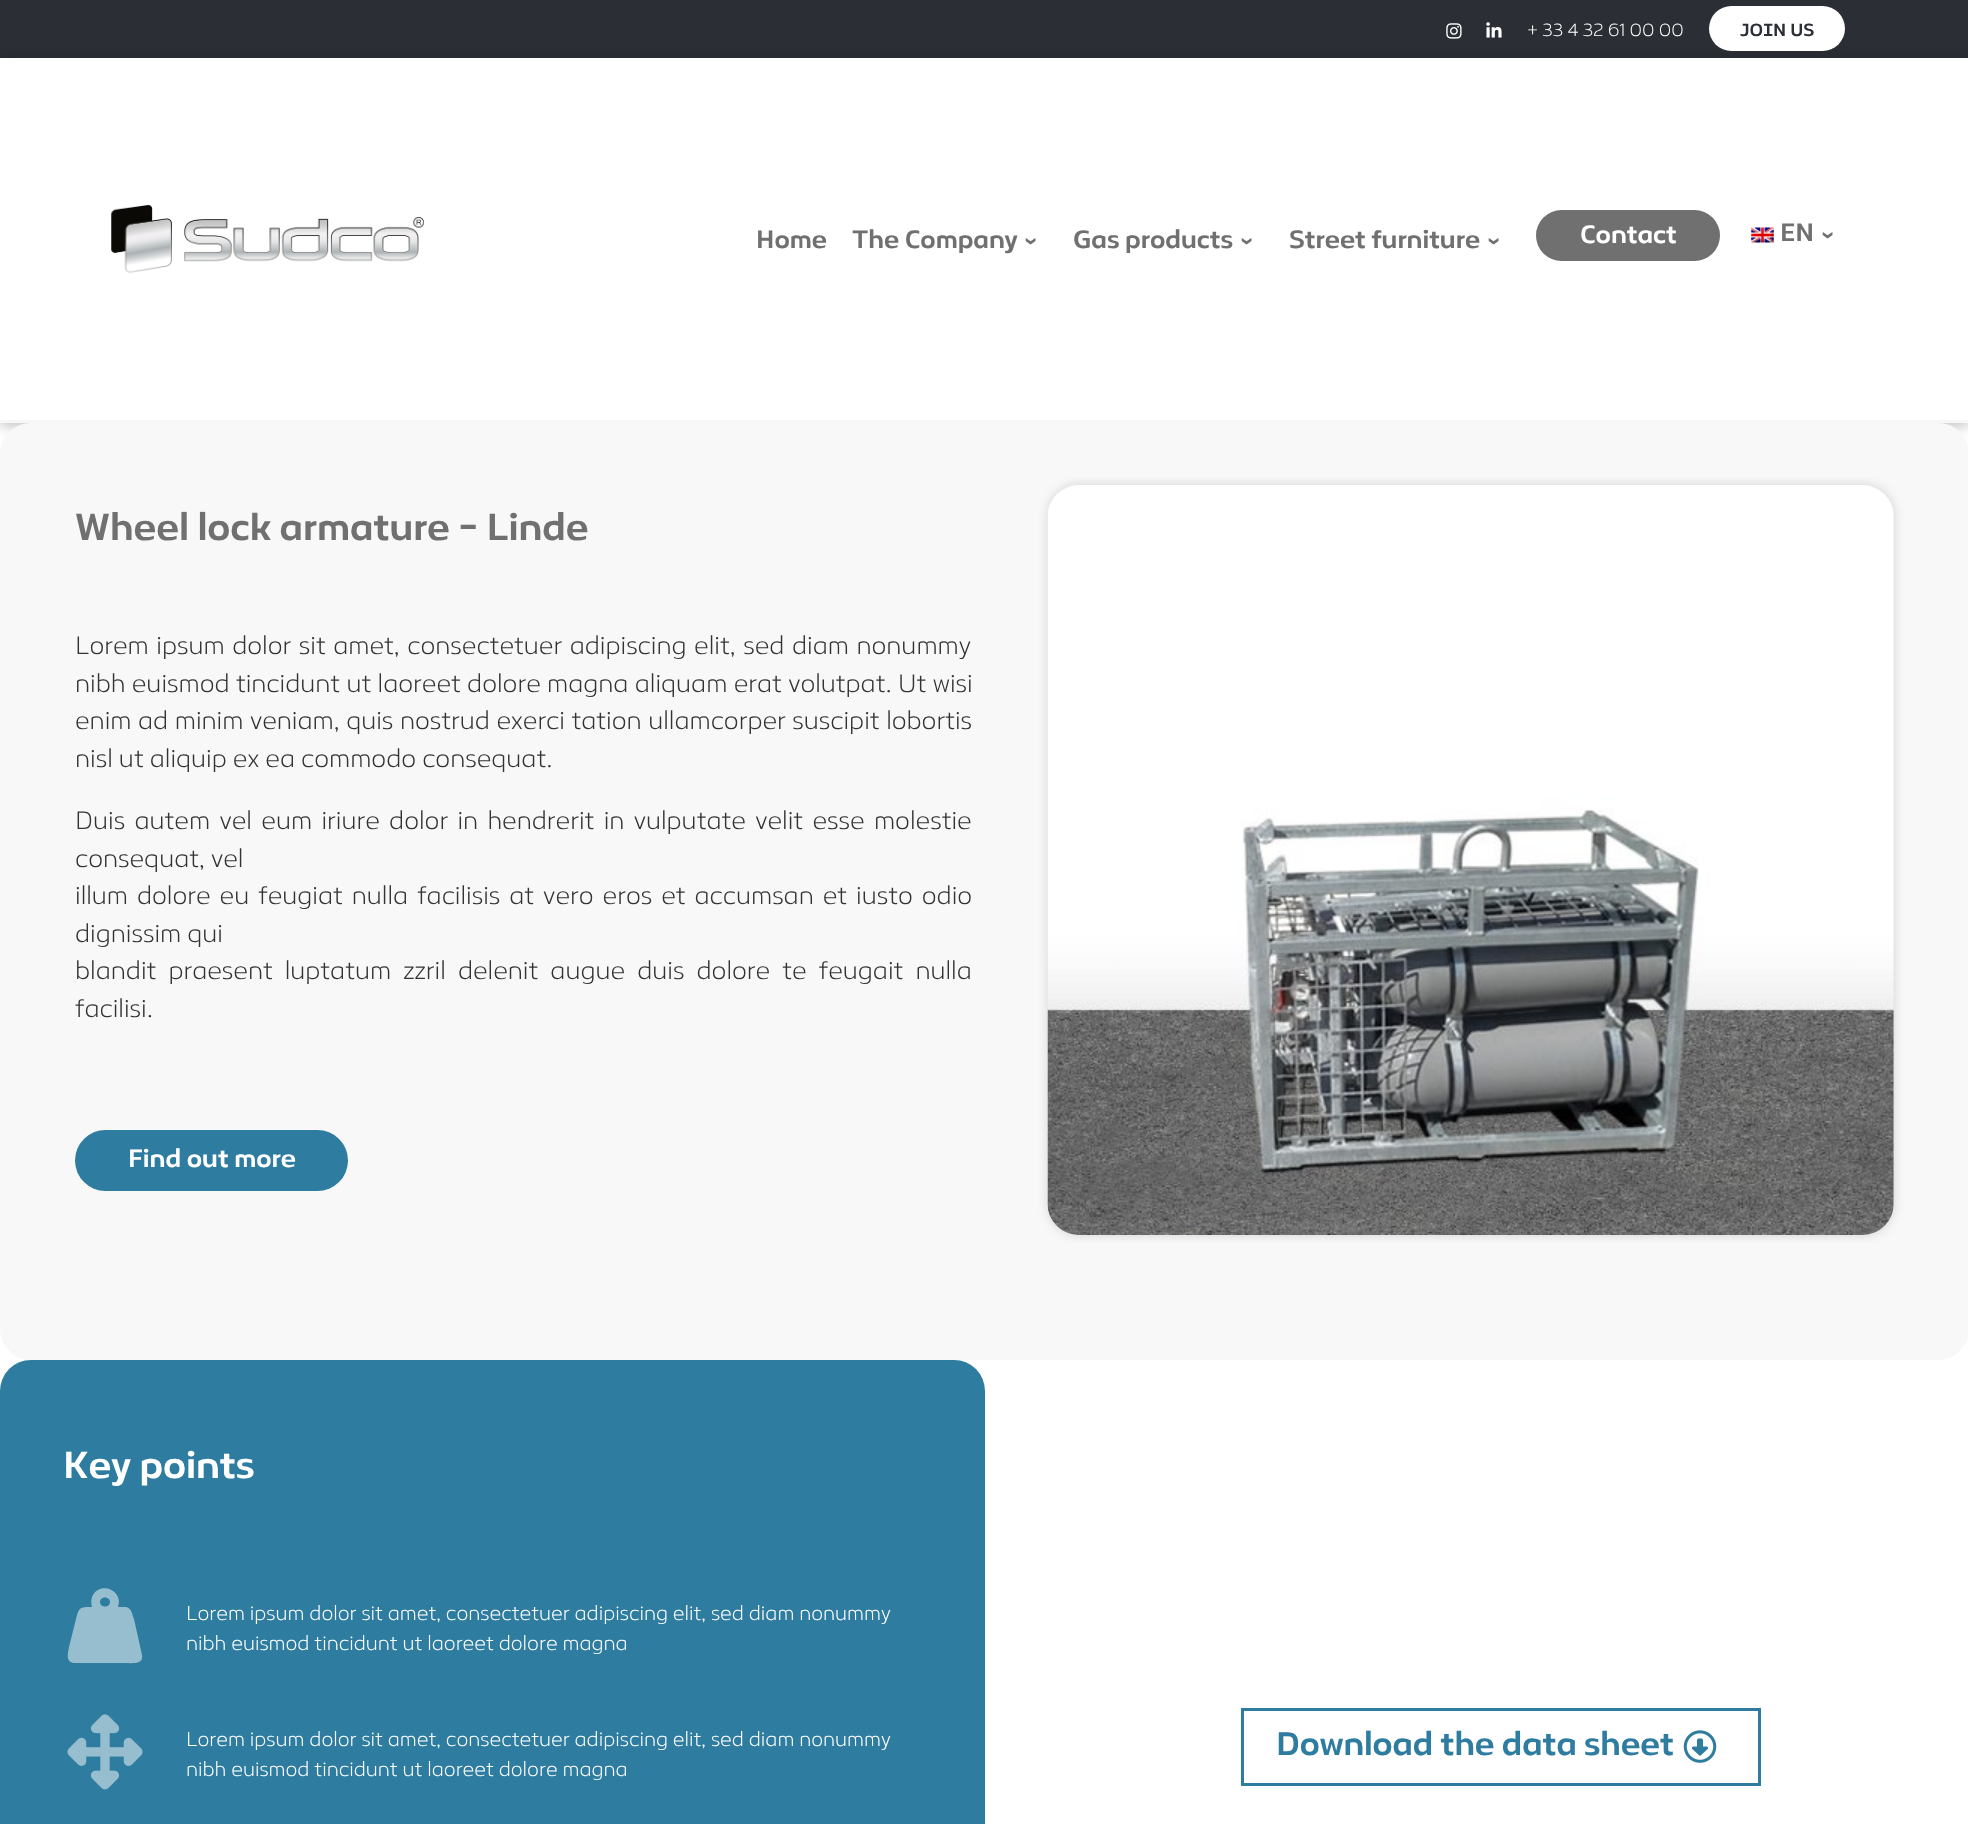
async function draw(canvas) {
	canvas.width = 1968;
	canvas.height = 1824;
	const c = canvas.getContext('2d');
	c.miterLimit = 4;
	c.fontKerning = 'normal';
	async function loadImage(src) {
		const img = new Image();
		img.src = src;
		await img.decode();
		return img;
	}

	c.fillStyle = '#fff';
	c.fillRect(0, 0, 1968, 1824);
	c.fillStyle = '#2b2e34';
	c.fillRect(0, 0, 1968, 58);
	c.drawImage(await loadImage('img1.png'), 1446, 23, 16, 16);
	c.drawImage(await loadImage('img2.png'), 1486, 22, 16, 16);
	c.font = '200 17.5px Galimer';
	c.fillStyle = '#fff';
	c.fillText('+ 33 4 32 61 00 00', 1527, 36);
	c.fillStyle = '#00000040';
	c.filter = 'blur(7px)';
	c.beginPath();
	c.rect(0, 61, 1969, 365);
	c.fill();
	c.filter = 'none';
	c.fillStyle = '#fff';
	c.beginPath();
	c.roundRect(1709, 6, 136, 45, 22.5);
	c.fill();
	c.font = '500 17.5px Galimer';
	c.fillStyle = '#2b2e34';
	c.fillText('JOIN US', 1740, 36);
	c.fillStyle = '#fff';
	c.fillRect(0, 58, 1968, 362);
	c.fillStyle = '#f7f7f7';
	c.fillRect(0, 420, 1968, 3);
	c.drawImage(await loadImage('img3.png'), 111, 205, 313, 68);
	c.font = '500 25px Galimer';
	c.fillStyle = '#707070';
	c.fillText('Home', 756, 248);
	c.fillText('The Company', 852, 248);
	c.font = 'bold 25px Liberation Sans';
	c.save();
	c.translate(1024, 237);
	c.rotate(90 * Math.PI / 180);
	c.fillText('›', 0, 0);
	c.restore();
	c.font = '500 25px Galimer';
	c.fillText('Gas products', 1073, 248);
	c.font = 'bold 25px Liberation Sans';
	c.save();
	c.translate(1240, 237);
	c.rotate(90 * Math.PI / 180);
	c.fillText('›', 0, 0);
	c.restore();
	c.font = '500 25px Galimer';
	c.fillText('Street furniture', 1289, 248);
	c.font = 'bold 25px Liberation Sans';
	c.save();
	c.translate(1487, 237);
	c.rotate(90 * Math.PI / 180);
	c.fillText('›', 0, 0);
	c.restore();
	c.beginPath();
	c.roundRect(1536, 210, 184, 51, 25.5);
	c.fill();
	c.font = '500 25px Galimer';
	c.fillStyle = '#fff';
	c.fillText('Contact', 1580, 243);
	c.drawImage(await loadImage('img4.png'), 1751, 227, 23, 16);
	c.fillStyle = '#707070';
	c.fillText('EN', 1780, 241);
	c.font = 'bold 25px Liberation Sans';
	c.save();
	c.translate(1821, 231);
	c.rotate(90 * Math.PI / 180);
	c.fillText('›', 0, 0);
	c.restore();
	c.fillStyle = '#f8f8f8';
	c.beginPath();
	c.roundRect(0, 423, 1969, 937, 31);
	c.fill();
	c.font = '500 37.5px Galimer';
	c.fillStyle = '#707070';
	c.fillText('Wheel lock armature - Linde', 75, 540);
	c.wordSpacing = '1.5px';
	c.font = '200 25px Galimer';
	c.fillStyle = '#333';
	c.fillText('Lorem ipsum dolor sit amet, consectetuer adipiscing elit, sed diam nonummy', 75, 654);
	c.wordSpacing = '0.25px';
	c.fillText('nibh euismod tincidunt ut laoreet dolore magna aliquam erat volutpat. Ut wisi', 75, 692);
	c.wordSpacing = '0.5px';
	c.fillText('enim ad minim veniam, quis nostrud exerci tation ullamcorper suscipit lobortis', 75, 729);
	c.wordSpacing = '0px';
	c.fillText('nisl ut aliquip ex ea commodo consequat.', 75, 767);
	c.wordSpacing = '3.25px';
	c.fillText('Duis autem vel eum iriure dolor in hendrerit in vulputate velit esse molestie', 75, 829);
	c.wordSpacing = '0px';
	c.fillText('consequat, vel', 75, 867);
	c.wordSpacing = '2.9px';
	c.fillText('illum dolore eu feugiat nulla facilisis at vero eros et accumsan et iusto odio', 75, 904);
	c.wordSpacing = '0px';
	c.fillText('dignissim qui', 75, 942);
	c.wordSpacing = '6px';
	c.fillText('blandit praesent luptatum zzril delenit augue duis dolore te feugait nulla', 75, 979);
	c.wordSpacing = '0px';
	c.fillText('facilisi.', 75, 1017);
	c.fillStyle = '#2e7c9f';
	c.beginPath();
	c.roundRect(75, 1130, 273, 61, 30.5);
	c.fill();
	c.font = '500 25px Galimer';
	c.fillStyle = '#fff';
	c.fillText('Find out more', 128, 1167);
	c.fillStyle = '#00000026';
	c.filter = 'blur(5.5px)';
	c.beginPath();
	c.roundRect(1048, 485, 846, 750, 31);
	c.fill();
	c.filter = 'none';
	c.drawImage(await loadImage('img5.png'), 1047, 485, 847, 750);
	c.fillStyle = '#2e7c9f';
	c.beginPath();
	c.roundRect(0, 1360, 985, 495, 31);
	c.fill();
	c.font = '500 37.5px Galimer';
	c.fillStyle = '#fff';
	c.fillText('Key points', 63, 1478);
	c.fillStyle = '#97becf';
	c.beginPath();
	c.moveTo(100, 1602);
	c.bezierCurveTo(100, 1596, 110, 1596, 110, 1602);
	c.bezierCurveTo(110, 1608, 100, 1608, 100, 1602);
	c.closePath();
	c.moveTo(118, 1607);
	c.bezierCurveTo(124, 1590, 99, 1580, 92, 1597);
	c.bezierCurveTo(91, 1600, 91, 1604, 92, 1607);
	c.bezierCurveTo(80, 1607, 79, 1607, 76, 1619);
	c.lineTo(69, 1647);
	c.bezierCurveTo(68, 1653, 65, 1663, 75, 1663);
	c.lineTo(125, 1663);
	c.bezierCurveTo(131, 1663, 144, 1665, 142, 1655);
	c.lineTo(134, 1619);
	c.bezierCurveTo(132, 1615, 132, 1608, 126, 1607);
	c.closePath();
	c.fill();
	c.font = '200 20px Galimer';
	c.fillStyle = '#fff';
	c.fillText('Lorem ipsum dolor sit amet, consectetuer adipiscing elit, sed diam nonummy', 186, 1620);
	c.fillText('nibh euismod tincidunt ut laoreet dolore magna', 186, 1650);
	c.drawImage(await loadImage('img6.png'), 67, 1714, 76, 76);
	c.fillText('Lorem ipsum dolor sit amet, consectetuer adipiscing elit, sed diam nonummy', 186, 1746);
	c.fillText('nibh euismod tincidunt ut laoreet dolore magna', 186, 1776);
	c.strokeStyle = '#2e7c9f';
	c.lineWidth = 3;
	c.strokeRect(1242.5, 1709.5, 517, 75);
	c.font = '500 32.5px Galimer';
	c.fillStyle = '#2e7c9f';
	c.fillText('Download the data sheet', 1276, 1755);
	c.drawImage(await loadImage('img7.png'), 1683, 1730, 34, 33);
}

draw(document.querySelector('canvas'));
